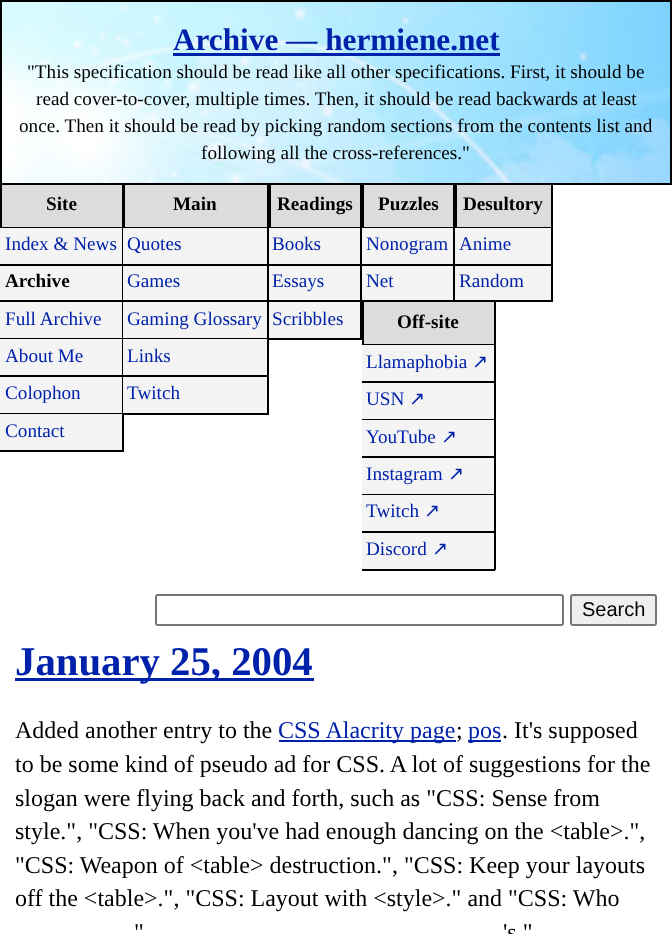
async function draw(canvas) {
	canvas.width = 672;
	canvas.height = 934;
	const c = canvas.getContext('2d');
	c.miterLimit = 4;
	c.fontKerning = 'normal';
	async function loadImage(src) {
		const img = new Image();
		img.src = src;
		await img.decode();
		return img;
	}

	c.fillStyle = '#fff';
	c.fillRect(0, 0, 672, 934);
	c.drawImage(await loadImage('img1.png'), 2, 2, 668, 181);
	c.strokeStyle = '#000';
	c.lineWidth = 2;
	c.strokeRect(1, 1, 670, 183);
	c.font = 'bold 31.25px Liberation Serif';
	c.fillStyle = '#02a';
	c.fillText('Archive — hermiene.net', 173, 50);
	c.fillRect(173, 53, 327, 3);
	c.font = '19.2px Liberation Serif';
	c.fillStyle = '#000';
	for (const [text, x, y] of [
		['"This specification should be read like all other specifications. First, it should be', 27, 78],
		['read cover-to-cover, multiple times. Then, it should be read backwards at least', 36, 105],
		['once. Then it should be read by picking random sections from the contents list and', 19, 132],
		['following all the cross-references."', 201, 159],
	]) {
		c.fillText(text, x, y);
	}
	for (const [x, y, w, h, color] of [
		[2, 185, 120, 42, '#dcdcdc'],
		[122, 185, 1, 229, '#000'],
		[0, 227, 123, 1, '#000'],
		[0, 185, 2, 43, '#000'],
	]) {
		c.fillStyle = color;
		c.fillRect(x, y, w, h);
	}
	c.font = 'bold 19.2px Liberation Serif';
	c.fillText('Site', 46, 210);
	c.fillStyle = '#f4f4f4';
	c.fillRect(0, 228, 122, 36);
	c.fillStyle = '#000';
	c.fillRect(0, 264, 123, 2);
	c.font = '19.2px Liberation Serif';
	c.fillStyle = '#02a';
	c.fillText('Index & News', 5, 250);
	c.fillStyle = '#f4f4f4';
	c.fillRect(0, 266, 122, 34);
	c.fillStyle = '#000';
	c.fillRect(0, 300, 123, 2);
	c.font = 'bold 19.2px Liberation Serif';
	c.fillText('Archive', 5, 287);
	c.fillStyle = '#f4f4f4';
	c.fillRect(0, 302, 122, 36);
	c.fillStyle = '#000';
	c.fillRect(0, 338, 123, 1);
	c.font = '19.2px Liberation Serif';
	c.fillStyle = '#02a';
	c.fillText('Full Archive', 5, 325);
	c.fillStyle = '#f4f4f4';
	c.fillRect(0, 339, 122, 36);
	c.fillStyle = '#000';
	c.fillRect(0, 375, 123, 2);
	c.fillStyle = '#02a';
	c.fillText('About Me', 5, 362);
	c.fillStyle = '#f4f4f4';
	c.fillRect(0, 377, 122, 36);
	c.fillStyle = '#000';
	c.fillRect(0, 413, 123, 1);
	c.fillStyle = '#02a';
	c.fillText('Colophon', 5, 399);
	for (const [x, y, w, h, color] of [
		[0, 414, 122, 36, '#f4f4f4'],
		[122, 414, 2, 38, '#000'],
		[0, 450, 123, 2, '#000'],
	]) {
		c.fillStyle = color;
		c.fillRect(x, y, w, h);
	}
	c.fillStyle = '#02a';
	c.fillText('Contact', 5, 437);
	for (const [x, y, w, h, color] of [
		[125, 185, 142, 42, '#dcdcdc'],
		[267, 185, 2, 229, '#000'],
		[123, 227, 146, 1, '#000'],
		[123, 185, 2, 43, '#000'],
	]) {
		c.fillStyle = color;
		c.fillRect(x, y, w, h);
	}
	c.font = 'bold 19.2px Liberation Serif';
	c.fillText('Main', 173, 210);
	c.fillStyle = '#f4f4f4';
	c.fillRect(123, 228, 144, 36);
	c.fillStyle = '#000';
	c.fillRect(123, 264, 146, 2);
	c.font = '19.2px Liberation Serif';
	c.fillStyle = '#02a';
	c.fillText('Quotes', 127, 250);
	c.fillStyle = '#f4f4f4';
	c.fillRect(123, 266, 144, 34);
	c.fillStyle = '#000';
	c.fillRect(123, 300, 146, 2);
	c.fillStyle = '#02a';
	c.fillText('Games', 127, 287);
	c.fillStyle = '#f4f4f4';
	c.fillRect(123, 302, 144, 36);
	c.fillStyle = '#000';
	c.fillRect(123, 338, 146, 1);
	c.fillStyle = '#02a';
	c.fillText('Gaming Glossary', 127, 325);
	c.fillStyle = '#f4f4f4';
	c.fillRect(123, 339, 144, 36);
	c.fillStyle = '#000';
	c.fillRect(123, 375, 146, 2);
	c.fillStyle = '#02a';
	c.fillText('Links', 127, 362);
	c.fillStyle = '#f4f4f4';
	c.fillRect(123, 377, 144, 36);
	c.fillStyle = '#000';
	c.fillRect(123, 413, 146, 2);
	c.fillStyle = '#02a';
	c.fillText('Twitch', 127, 399);
	for (const [x, y, w, h, color] of [
		[271, 185, 89, 42, '#dcdcdc'],
		[360, 185, 2, 154, '#000'],
		[269, 227, 93, 1, '#000'],
		[269, 185, 2, 43, '#000'],
	]) {
		c.fillStyle = color;
		c.fillRect(x, y, w, h);
	}
	c.font = 'bold 19.2px Liberation Serif';
	c.fillText('Readings', 277, 210);
	c.fillStyle = '#f4f4f4';
	c.fillRect(269, 228, 91, 36);
	c.fillStyle = '#000';
	c.fillRect(269, 264, 93, 2);
	c.font = '19.2px Liberation Serif';
	c.fillStyle = '#02a';
	c.fillText('Books', 272, 250);
	c.fillStyle = '#f4f4f4';
	c.fillRect(269, 266, 91, 34);
	c.fillStyle = '#000';
	c.fillRect(269, 300, 93, 2);
	c.fillStyle = '#02a';
	c.fillText('Essays', 272, 287);
	c.fillStyle = '#f4f4f4';
	c.fillRect(269, 302, 91, 36);
	c.fillStyle = '#000';
	c.fillRect(269, 338, 93, 2);
	c.fillStyle = '#02a';
	c.fillText('Scribbles', 272, 325);
	for (const [x, y, w, h, color] of [
		[364, 185, 89, 42, '#dcdcdc'],
		[453, 185, 2, 117, '#000'],
		[362, 227, 93, 1, '#000'],
		[362, 185, 2, 43, '#000'],
	]) {
		c.fillStyle = color;
		c.fillRect(x, y, w, h);
	}
	c.font = 'bold 19.2px Liberation Serif';
	c.fillText('Puzzles', 378, 210);
	c.fillStyle = '#f4f4f4';
	c.fillRect(362, 228, 91, 36);
	c.fillStyle = '#000';
	c.fillRect(362, 264, 93, 2);
	c.font = '19.2px Liberation Serif';
	c.fillStyle = '#02a';
	c.fillText('Nonogram', 366, 250);
	c.fillStyle = '#f4f4f4';
	c.fillRect(362, 266, 91, 34);
	c.fillStyle = '#000';
	c.fillRect(362, 300, 93, 2);
	c.fillStyle = '#02a';
	c.fillText('Net', 366, 287);
	for (const [x, y, w, h, color] of [
		[457, 185, 94, 42, '#dcdcdc'],
		[551, 185, 2, 117, '#000'],
		[455, 227, 97, 1, '#000'],
		[455, 185, 2, 43, '#000'],
	]) {
		c.fillStyle = color;
		c.fillRect(x, y, w, h);
	}
	c.font = 'bold 19.2px Liberation Serif';
	c.fillText('Desultory', 463, 210);
	c.fillStyle = '#f4f4f4';
	c.fillRect(455, 228, 96, 36);
	c.fillStyle = '#000';
	c.fillRect(455, 264, 97, 2);
	c.font = '19.2px Liberation Serif';
	c.fillStyle = '#02a';
	c.fillText('Anime', 459, 250);
	c.fillStyle = '#f4f4f4';
	c.fillRect(455, 266, 96, 34);
	c.fillStyle = '#000';
	c.fillRect(455, 300, 97, 2);
	c.fillStyle = '#02a';
	c.fillText('Random', 459, 287);
	for (const [x, y, w, h, color] of [
		[364, 302, 130, 42, '#dcdcdc'],
		[494, 302, 2, 268, '#000'],
		[362, 344, 133, 1, '#000'],
		[362, 302, 2, 43, '#000'],
	]) {
		c.fillStyle = color;
		c.fillRect(x, y, w, h);
	}
	c.font = 'bold 19.2px Liberation Serif';
	c.fillText('Off-site', 397, 328);
	c.fillStyle = '#f4f4f4';
	c.fillRect(362, 345, 132, 36);
	c.fillStyle = '#000';
	c.fillRect(362, 381, 133, 2);
	c.font = '19.2px Liberation Serif';
	c.fillStyle = '#02a';
	c.fillText('Llamaphobia', 366, 368);
	c.font = '19.2px DejaVu Sans';
	c.fillText('↗', 472, 368);
	c.fillStyle = '#f4f4f4';
	c.fillRect(362, 383, 132, 36);
	c.fillStyle = '#000';
	c.fillRect(362, 419, 133, 1);
	c.font = '19.2px Liberation Serif';
	c.fillStyle = '#02a';
	c.fillText('USN', 366, 405);
	c.font = '19.2px DejaVu Sans';
	c.fillText('↗', 409, 405);
	c.fillStyle = '#f4f4f4';
	c.fillRect(362, 420, 132, 36);
	c.fillStyle = '#000';
	c.fillRect(362, 456, 133, 2);
	c.font = '19.2px Liberation Serif';
	c.fillStyle = '#02a';
	c.fillText('YouTube', 366, 443);
	c.font = '19.2px DejaVu Sans';
	c.fillText('↗', 441, 443);
	c.fillStyle = '#f4f4f4';
	c.fillRect(362, 458, 132, 36);
	c.fillStyle = '#000';
	c.fillRect(362, 494, 133, 1);
	c.font = '19.2px Liberation Serif';
	c.fillStyle = '#02a';
	c.fillText('Instagram', 366, 480);
	c.font = '19.2px DejaVu Sans';
	c.fillText('↗', 448, 480);
	c.fillStyle = '#f4f4f4';
	c.fillRect(362, 495, 132, 36);
	c.fillStyle = '#000';
	c.fillRect(362, 531, 133, 2);
	c.font = '19.2px Liberation Serif';
	c.fillStyle = '#02a';
	c.fillText('Twitch', 366, 517);
	c.font = '19.2px DejaVu Sans';
	c.fillText('↗', 424, 517);
	c.fillStyle = '#f4f4f4';
	c.fillRect(362, 533, 132, 36);
	c.fillStyle = '#000';
	c.fillRect(362, 569, 133, 2);
	c.font = '19.2px Liberation Serif';
	c.fillStyle = '#02a';
	c.fillText('Discord', 366, 555);
	c.font = '19.2px DejaVu Sans';
	c.fillText('↗', 432, 555);
	c.beginPath();
	c.roundRect(156, 595, 407, 30, 2);
	c.strokeStyle = '#767676';
	c.stroke();
	c.fillStyle = '#efefef';
	c.beginPath();
	c.roundRect(571, 595, 85, 30, 2);
	c.fill();
	c.stroke();
	c.font = '20px Liberation Sans';
	c.fillStyle = '#000';
	c.fillText('Search', 582, 616);
	c.fillStyle = '#02a';
	c.fillRect(15, 678, 299, 3);
	c.font = 'bold 40.75px Liberation Serif';
	c.fillText('January 25, 2004', 15, 675);
	c.font = '24px Liberation Serif';
	c.fillStyle = '#000';
	c.fillText('Added another entry to the', 15, 738);
	c.fillStyle = '#02a';
	c.fillRect(279, 740, 177, 2);
	c.fillText('CSS Alacrity page', 278, 738);
	c.fillStyle = '#000';
	c.fillText(';', 456, 738);
	c.fillStyle = '#02a';
	c.fillRect(468, 740, 33, 2);
	c.fillText('pos', 468, 738);
	c.fillStyle = '#000';
	for (const [text, x, y] of [
		['. It\'s supposed', 502, 738],
		['to be some kind of pseudo ad for CSS. A lot of suggestions for the', 15, 772],
		['slogan were flying back and forth, such as "CSS: Sense from', 15, 806],
		['style.", "CSS: When you\'ve had enough dancing on the <table>.",', 15, 839],
		['"CSS: Weapon of <table> destruction.", "CSS: Keep your layouts', 15, 873],
		['off the <table>.", "CSS: Layout with <style>." and "CSS: Who', 15, 906],
		['"', 134, 940],
		['\'s "', 503, 940],
	]) {
		c.fillText(text, x, y);
	}
}

draw(document.querySelector('canvas'));
